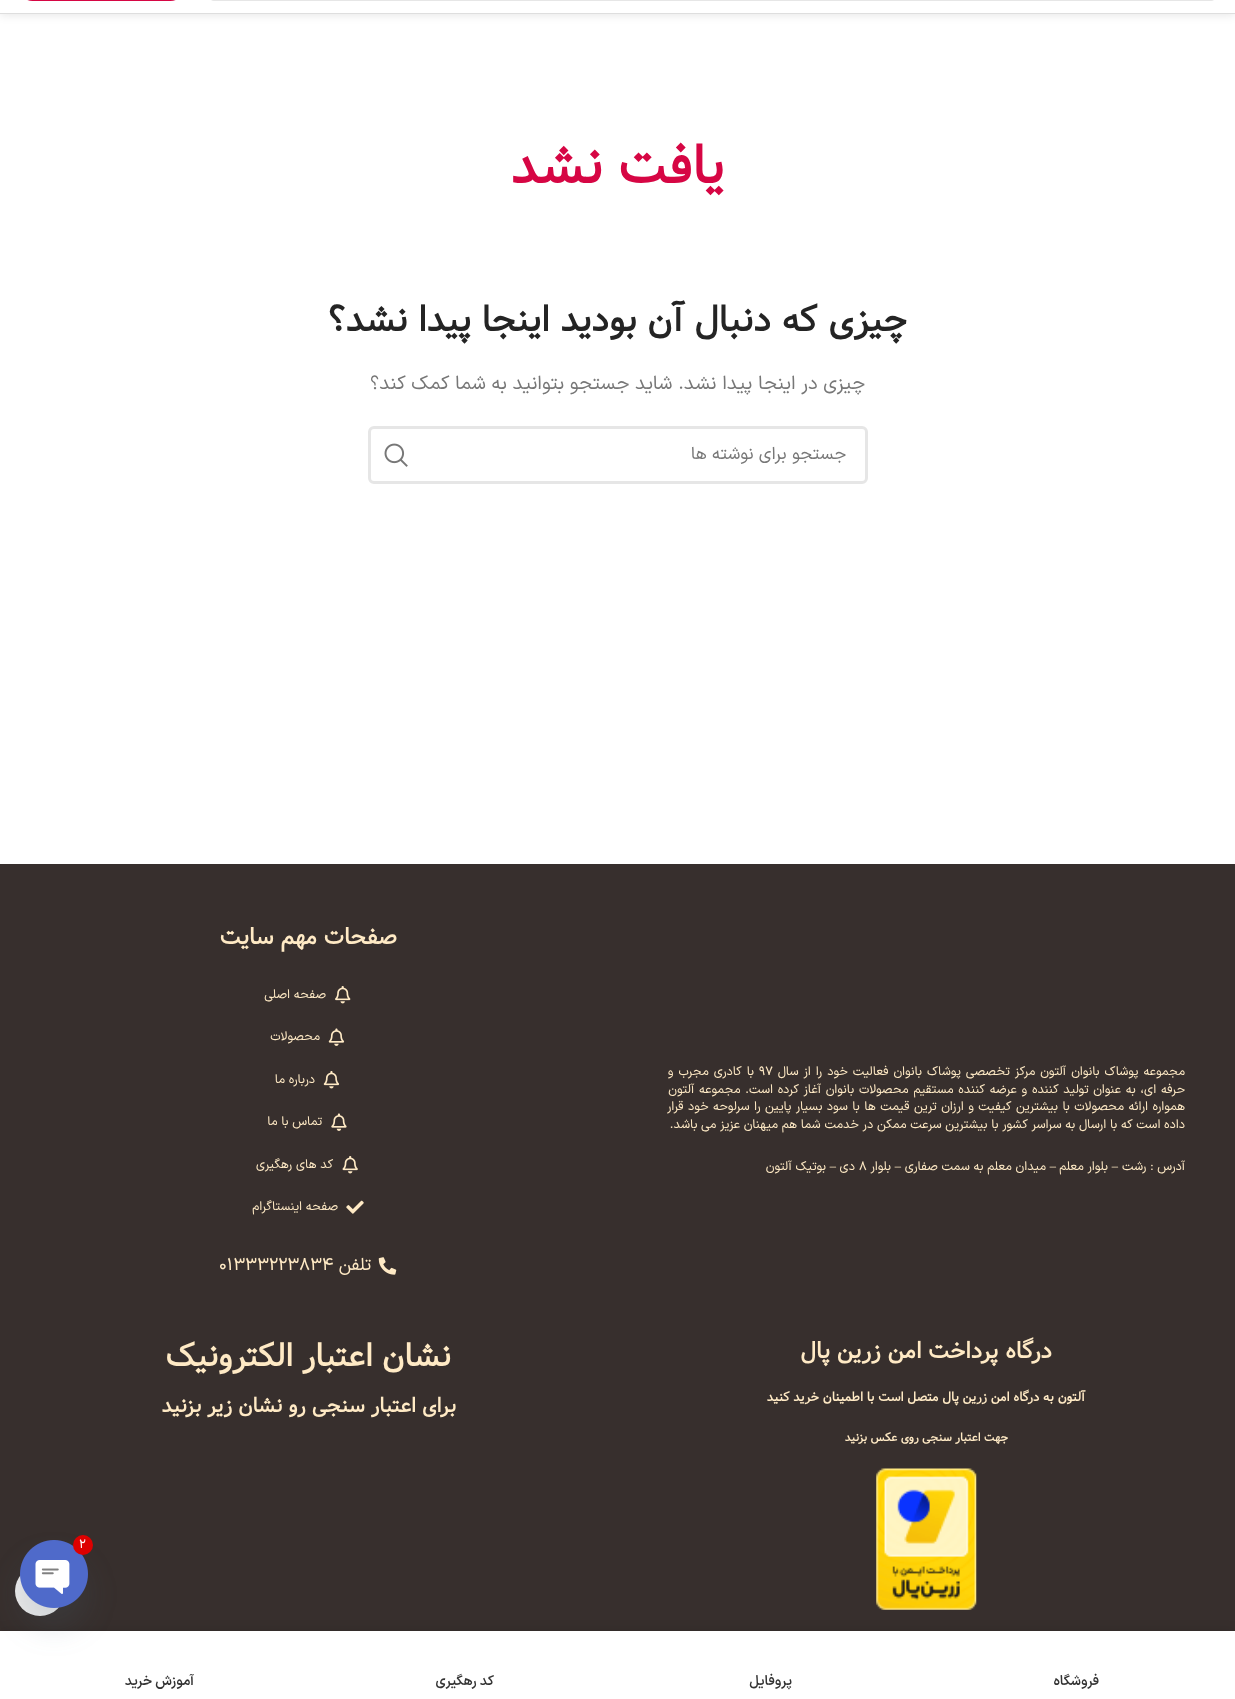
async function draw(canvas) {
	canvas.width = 1235;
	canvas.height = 1699;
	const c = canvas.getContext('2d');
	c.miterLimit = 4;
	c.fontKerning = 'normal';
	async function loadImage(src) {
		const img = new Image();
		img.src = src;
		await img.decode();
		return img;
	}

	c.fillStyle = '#fff';
	c.fillRect(0, 0, 1235, 1699);
	c.fillStyle = '#0000001a';
	c.filter = 'blur(5px)';
	c.beginPath();
	c.rect(0, -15, 1235, 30);
	c.fill();
	c.filter = 'none';
	c.fillStyle = '#fff';
	c.fillRect(0, 0, 1235, 13);
	c.fillStyle = '#dedede';
	c.fillRect(0, 13, 1235, 1);
	c.beginPath();
	c.roundRect(210.5, -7.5, 1004, 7, 4.5);
	c.strokeStyle = '#e6e6e6';
	c.lineWidth = 3;
	c.stroke();
	c.fillStyle = '#d60644';
	c.beginPath();
	c.roundRect(19, -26, 165, 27, 26);
	c.fill();
	c.direction = 'rtl';
	c.font = 'bold 52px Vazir';
	c.fillText('یافت نشد', 724, 183);
	c.font = 'bold 35px Vazir';
	c.fillStyle = '#242424';
	c.fillText('چیزی که دنبال آن بودید اینجا پیدا نشد؟', 907, 331);
	c.font = '19.25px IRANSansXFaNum';
	c.fillStyle = '#777';
	c.fillText('چیزی در اینجا پیدا نشد. شاید جستجو بتوانید به شما کمک کند؟', 865, 389);
	c.beginPath();
	c.roundRect(369.5, 427.5, 497, 55, 4.5);
	c.stroke();
	c.font = '17.5px IRANSansXFaNum';
	c.fillText('جستجو برای نوشته ها', 846, 459);
	c.drawImage(await loadImage('img1.png'), 384, 443, 24, 24);
	c.fillStyle = '#372f2d';
	c.fillRect(0, 864, 1235, 767);
	c.wordSpacing = '1.25px';
	c.font = '12.5px IRANSansXFaNum';
	c.fillStyle = '#ffeac5';
	c.fillText('مجموعه پوشاک بانوان آلتون مرکز تخصصی پوشاک بانوان فعالیت خود را از سال', 1185, 1075);
	c.wordSpacing = '0px';
	c.direction = 'ltr';
	c.fillText('97', 759, 1075);
	c.wordSpacing = '1.25px';
	c.direction = 'rtl';
	c.fillText('با کادری مجرب و', 754, 1075);
	c.wordSpacing = '1px';
	c.fillText('حرفه ای، به عنوان تولید کننده و عرضه کننده مستقیم محصولات بانوان آغاز کرده است. مجموعه آلتون', 1185, 1093);
	c.wordSpacing = '0.75px';
	c.fillText('همواره ارائه محصولات با بیشترین کیفیت و ارزان ترین قیمت ها با سود بسیار پایین را سرلوحه خود قرار', 1185, 1110);
	c.wordSpacing = '0px';
	c.fillText('داده است که با ارسال به سراسر کشور با بیشترین سرعت ممکن در خدمت شما هم میهنان عزیز می باشد.', 1185, 1128);
	c.fillText('آدرس : رشت', 1185, 1170);
	c.font = '12.5px Liberation Serif';
	c.fillText('–', 1118, 1170);
	c.font = '12.5px IRANSansXFaNum';
	c.fillText('بلوار معلم', 1108, 1170);
	c.font = '12.5px Liberation Serif';
	c.fillText('–', 1056, 1170);
	c.font = '12.5px IRANSansXFaNum';
	c.fillText('میدان معلم به سمت صفاری', 1046, 1170);
	c.font = '12.5px Liberation Serif';
	c.fillText('–', 901, 1170);
	c.font = '12.5px IRANSansXFaNum';
	c.fillText('بلوار', 891, 1170);
	c.direction = 'ltr';
	c.fillText('8', 859, 1170);
	c.direction = 'rtl';
	c.fillText('دی', 855, 1170);
	c.font = '12.5px Liberation Serif';
	c.fillText('–', 836, 1170);
	c.font = '12.5px IRANSansXFaNum';
	c.fillText('بوتیک آلتون', 826, 1170);
	c.font = 'bold 22.5px Vazir';
	c.fillText('صفحات مهم سایت', 397, 944);
	c.drawImage(await loadImage('img2.png'), 335, 986, 16, 18);
	c.font = '12.5px IRANSansXFaNum';
	c.fillText('صفحه اصلی', 326, 998);
	c.drawImage(await loadImage('img3.png'), 328, 1028, 17, 18);
	c.fillText('محصولات', 320, 1040);
	c.drawImage(await loadImage('img4.png'), 323, 1071, 17, 18);
	c.fillText('درباره ما', 315, 1083);
	c.drawImage(await loadImage('img5.png'), 331, 1113, 16, 18);
	c.fillText('تماس با ما', 322, 1125);
	c.drawImage(await loadImage('img6.png'), 342, 1156, 16, 18);
	c.fillText('کد های رهگیری', 333, 1168);
	c.drawImage(await loadImage('img7.png'), 346, 1200, 18, 14);
	c.fillText('صفحه اینستاگرام', 338, 1210);
	c.drawImage(await loadImage('img8.png'), 378, 1257, 19, 18);
	c.font = '17.5px IRANSansXFaNum';
	c.fillText('تلفن', 371, 1270);
	c.direction = 'ltr';
	c.fillText('01333223834', 219, 1270);
	c.direction = 'rtl';
	c.font = 'bold 22.5px Vazir';
	c.fillText('درگاه پرداخت امن زرین پال', 1052, 1358);
	c.font = 'bold 12.5px Vazir';
	c.fillText('آلتون به درگاه امن زرین پال متصل است با اطمینان خرید کنید', 1085, 1401);
	c.font = 'bold 11.25px Vazir';
	c.fillText('جهت اعتبار سنجی روی عکس بزنید', 1008, 1441);
	c.drawImage(await loadImage('img9.png'), 876, 1468, 101, 142);
	c.font = 'bold 31.25px Vazir';
	c.fillText('نشان اعتبار الکترونیک', 451, 1366);
	c.font = 'bold 20px Vazir';
	c.fillText('برای اعتبار سنجی رو نشان زیر بزنید', 456, 1412);
	c.fillStyle = '#ffffffe6';
	c.beginPath();
	c.arc(40, 1591, 25, 0, 2 * Math.PI);
	c.fill();
	c.fillStyle = '#0000001f';
	c.filter = 'blur(5.5px)';
	c.beginPath();
	c.rect(0, 1631, 1235, 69);
	c.fill();
	c.filter = 'none';
	c.fillStyle = '#fff';
	c.fillRect(0, 1631, 1235, 68);
	c.fillStyle = '#49687e29';
	c.filter = 'blur(15px)';
	c.beginPath();
	c.roundRect(20, 1560, 68, 68, 34);
	c.fill();
	c.filter = 'none';
	c.drawImage(await loadImage('img10.png'), 20, 1540, 68, 68);
	c.fillStyle = '#d00';
	c.beginPath();
	c.arc(83, 1545, 10, 0, 2 * Math.PI);
	c.fill();
	c.direction = 'ltr';
	c.font = '12.5px IRANSansXFaNum';
	c.fillStyle = '#fff';
	c.fillText('2', 79, 1548);
	c.direction = 'rtl';
	c.font = '600 13.75px IRANSansXFaNum';
	c.fillStyle = '#333';
	for (const [text, x, y] of [
		['فروشگاه', 1099, 1685],
		['پروفایل', 792, 1685],
		['کد رهگیری', 494, 1685],
		['آموزش خرید', 194, 1685],
	]) {
		c.fillText(text, x, y);
	}
}

draw(document.querySelector('canvas'));
